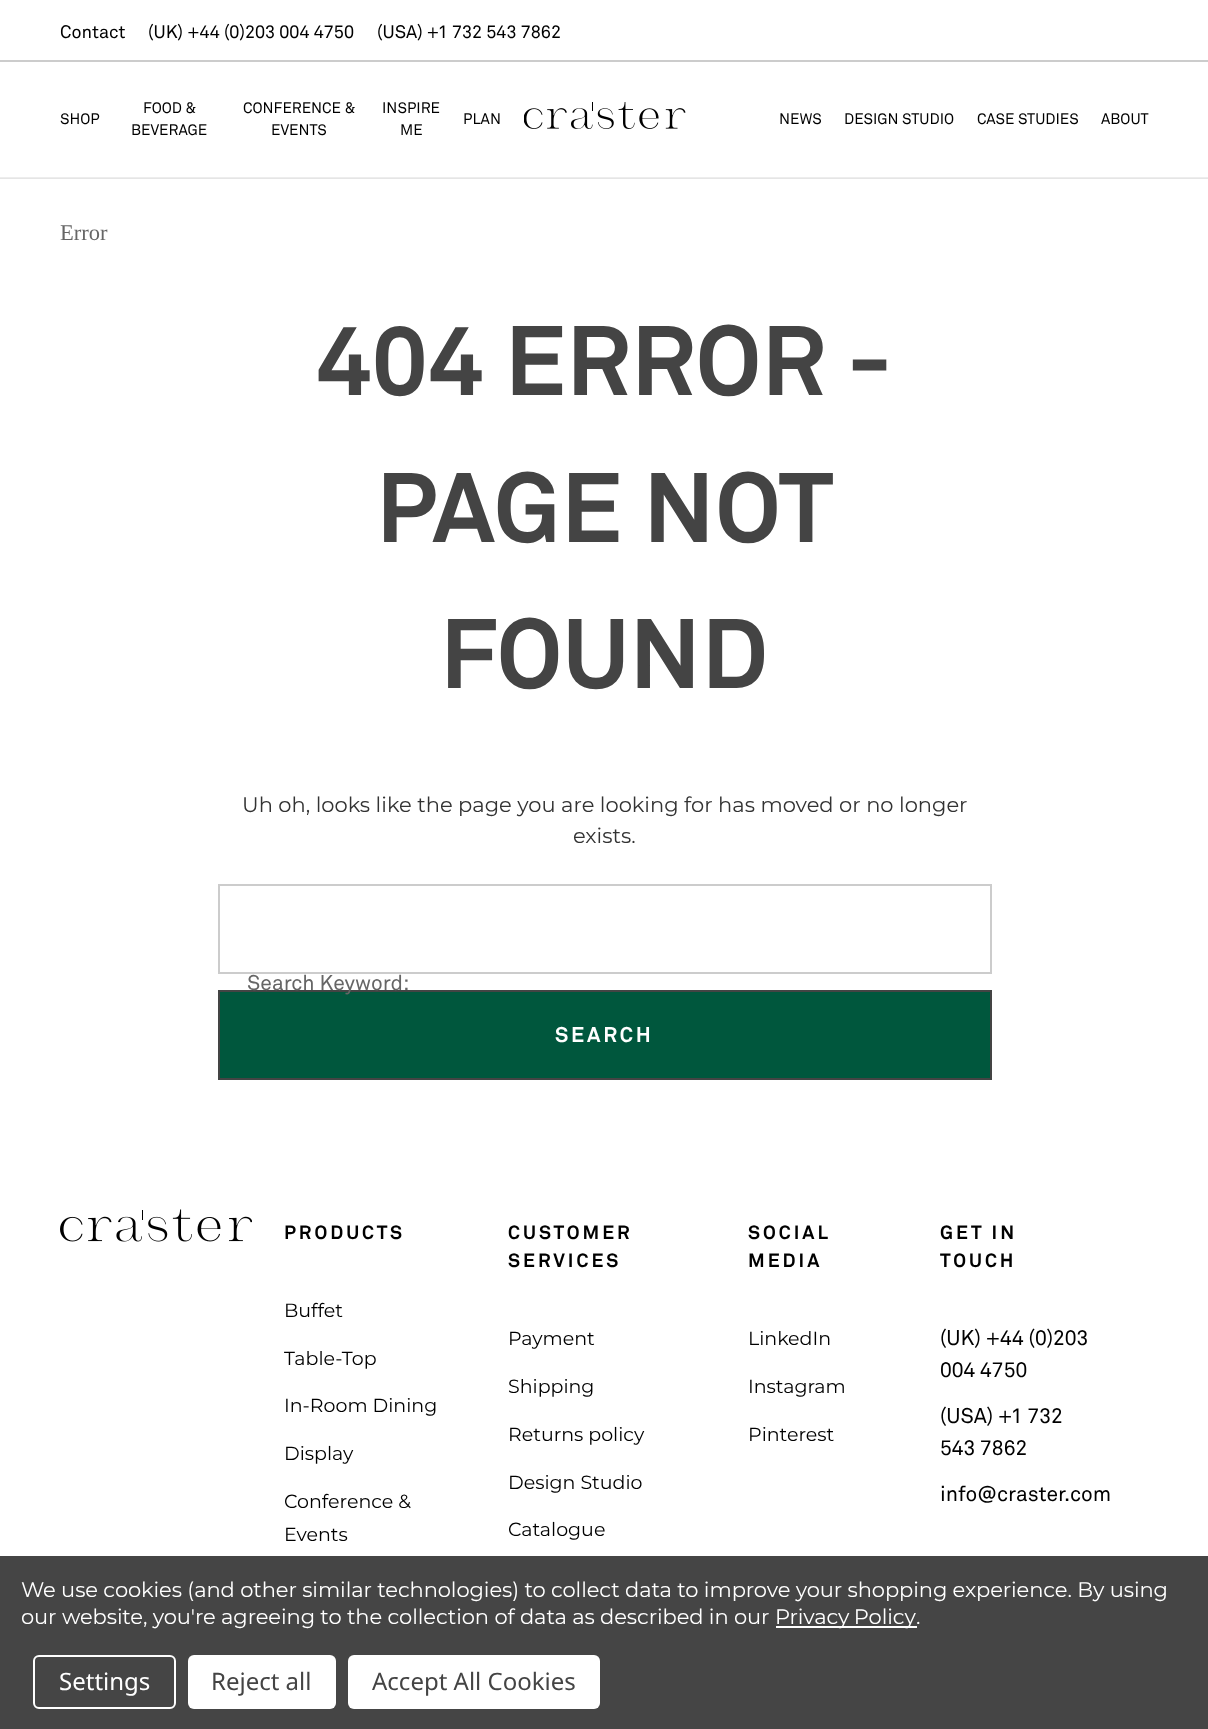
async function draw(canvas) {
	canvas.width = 1208;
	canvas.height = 1729;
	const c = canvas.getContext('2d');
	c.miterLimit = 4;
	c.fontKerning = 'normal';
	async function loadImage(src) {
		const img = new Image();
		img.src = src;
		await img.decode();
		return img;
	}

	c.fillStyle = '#fff';
	c.fillRect(0, 0, 1208, 1729);
	for (const [x, y, w, h, color] of [
		[0, 178, 1208, 1, '#e5e5e5'],
		[0, 177, 1208, 1, '#ededed'],
		[0, 60, 1208, 2, '#ccc'],
	]) {
		c.fillStyle = color;
		c.fillRect(x, y, w, h);
	}
	c.font = '18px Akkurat';
	c.fillStyle = '#000';
	for (const [text, x, y] of [
		['Contact', 60, 38],
		['(UK) +44 (0)203 004 4750', 148, 38],
		['(USA) +1 732 543 7862', 377, 38],
	]) {
		c.fillText(text, x, y);
	}
	c.font = '15px Akkurat';
	for (const [text, x, y] of [
		['SHOP', 60, 124],
		['FOOD &', 143, 113],
		['BEVERAGE', 131, 135],
		['CONFERENCE &', 243, 113],
		['EVENTS', 271, 135],
		['INSPIRE', 382, 113],
		['ME', 400, 135],
		['PLAN', 463, 124],
	]) {
		c.fillText(text, x, y);
	}
	c.drawImage(await loadImage('img1.png'), 524, 102, 162, 27);
	for (const [text, x, y] of [
		['NEWS', 779, 124],
		['DESIGN STUDIO', 844, 124],
		['CASE STUDIES', 977, 124],
		['ABOUT', 1101, 124],
	]) {
		c.fillText(text, x, y);
	}
	c.font = '22.5px Liberation Serif';
	c.fillStyle = '#666';
	c.fillText('Error', 60, 240);
	c.letterSpacing = '0.4px';
	c.font = 'bold 97.5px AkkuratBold';
	c.fillStyle = '#444';
	for (const [text, x, y] of [
		['404 ERROR -', 316, 395],
		['PAGE NOT', 376, 542],
		['FOUND', 440, 688],
	]) {
		c.fillText(text, x, y);
	}
	c.letterSpacing = '0px';
	c.font = '100 21px Montserrat';
	c.fillStyle = '#333';
	c.fillText('Uh oh, looks like the page you are looking for has moved or no longer', 242, 812);
	c.fillText('exists.', 573, 843);
	c.fillStyle = '#00573d';
	c.beginPath();
	c.rect(219, 991, 772, 88);
	c.fill();
	c.strokeStyle = '#444';
	c.lineWidth = 2;
	c.stroke();
	c.font = '21px Akkurat';
	c.fillStyle = '#666';
	c.fillText('Search Keyword:', 247, 990);
	c.strokeStyle = '#ccc';
	c.strokeRect(219, 885, 772, 88);
	c.letterSpacing = '2.75px';
	c.font = 'bold 21px AkkuratBold';
	c.fillStyle = '#fff';
	c.fillText('SEARCH', 555, 1042);
	c.drawImage(await loadImage('img2.png'), 60, 1209, 192, 33);
	c.letterSpacing = '3px';
	c.font = 'bold 19px AkkuratBold';
	c.fillStyle = '#000';
	c.fillText('PRODUCTS', 284, 1239);
	c.letterSpacing = '0px';
	c.font = '100 19px Montserrat';
	for (const [text, x, y] of [
		['Buffet', 284, 1317],
		['Table-Top', 284, 1365],
		['In-Room Dining', 284, 1412],
		['Display', 284, 1460],
		['Conference &', 284, 1508],
		['Events', 284, 1541],
	]) {
		c.fillText(text, x, y);
	}
	c.letterSpacing = '3px';
	c.font = 'bold 19px AkkuratBold';
	c.fillText('CUSTOMER', 508, 1239);
	c.fillText('SERVICES', 508, 1267);
	c.letterSpacing = '0px';
	c.font = '100 19px Montserrat';
	for (const [text, x, y] of [
		['Payment', 508, 1345],
		['Shipping', 508, 1393],
		['Returns policy', 508, 1441],
		['Design Studio', 508, 1489],
		['Catalogue', 508, 1536],
	]) {
		c.fillText(text, x, y);
	}
	c.letterSpacing = '3px';
	c.font = 'bold 19px AkkuratBold';
	c.fillText('SOCIAL', 748, 1239);
	c.fillText('MEDIA', 748, 1267);
	c.letterSpacing = '0px';
	c.font = '100 19px Montserrat';
	for (const [text, x, y] of [
		['LinkedIn', 748, 1345],
		['Instagram', 748, 1393],
		['Pinterest', 748, 1441],
	]) {
		c.fillText(text, x, y);
	}
	c.letterSpacing = '3px';
	c.font = 'bold 19px AkkuratBold';
	c.fillText('GET IN', 940, 1239);
	c.fillText('TOUCH', 940, 1267);
	c.letterSpacing = '0px';
	c.font = '21px Akkurat';
	for (const [text, x, y] of [
		['(UK) +44 (0)203', 940, 1345],
		['004 4750', 940, 1377],
		['(USA) +1 732', 940, 1423],
		['543 7862', 940, 1455],
		['info@craster.com', 940, 1501],
	]) {
		c.fillText(text, x, y);
	}
	c.fillStyle = '#454545';
	c.fillRect(0, 1556, 1208, 173);
	c.letterSpacing = '-0.08px';
	c.font = '100 21px Montserrat';
	c.fillStyle = '#fff';
	c.fillText('We use cookies (and other similar technologies) to collect data to improve your shopping experience. By using', 21, 1597);
	c.fillText('our website, you\'re agreeing to the collection of data as described in our', 21, 1624);
	c.fillRect(776, 1626, 141, 2);
	c.wordSpacing = '-1px';
	c.fillText('Privacy Policy', 775, 1624);
	c.wordSpacing = '0px';
	c.fillText('.', 916, 1624);
	c.beginPath();
	c.roundRect(34, 1656, 141, 52, 5);
	c.strokeStyle = '#fff';
	c.stroke();
	c.letterSpacing = '0px';
	c.font = '24px Noto Sans';
	c.fillText('Settings', 59, 1690);
	c.beginPath();
	c.roundRect(188, 1655, 148, 54, 6);
	c.fill();
	c.fillStyle = '#444';
	c.fillText('Reject all', 211, 1690);
	c.fillStyle = '#fff';
	c.beginPath();
	c.roundRect(348, 1655, 252, 54, 6);
	c.fill();
	c.fillStyle = '#444';
	c.fillText('Accept All Cookies', 372, 1690);
}

draw(document.querySelector('canvas'));
